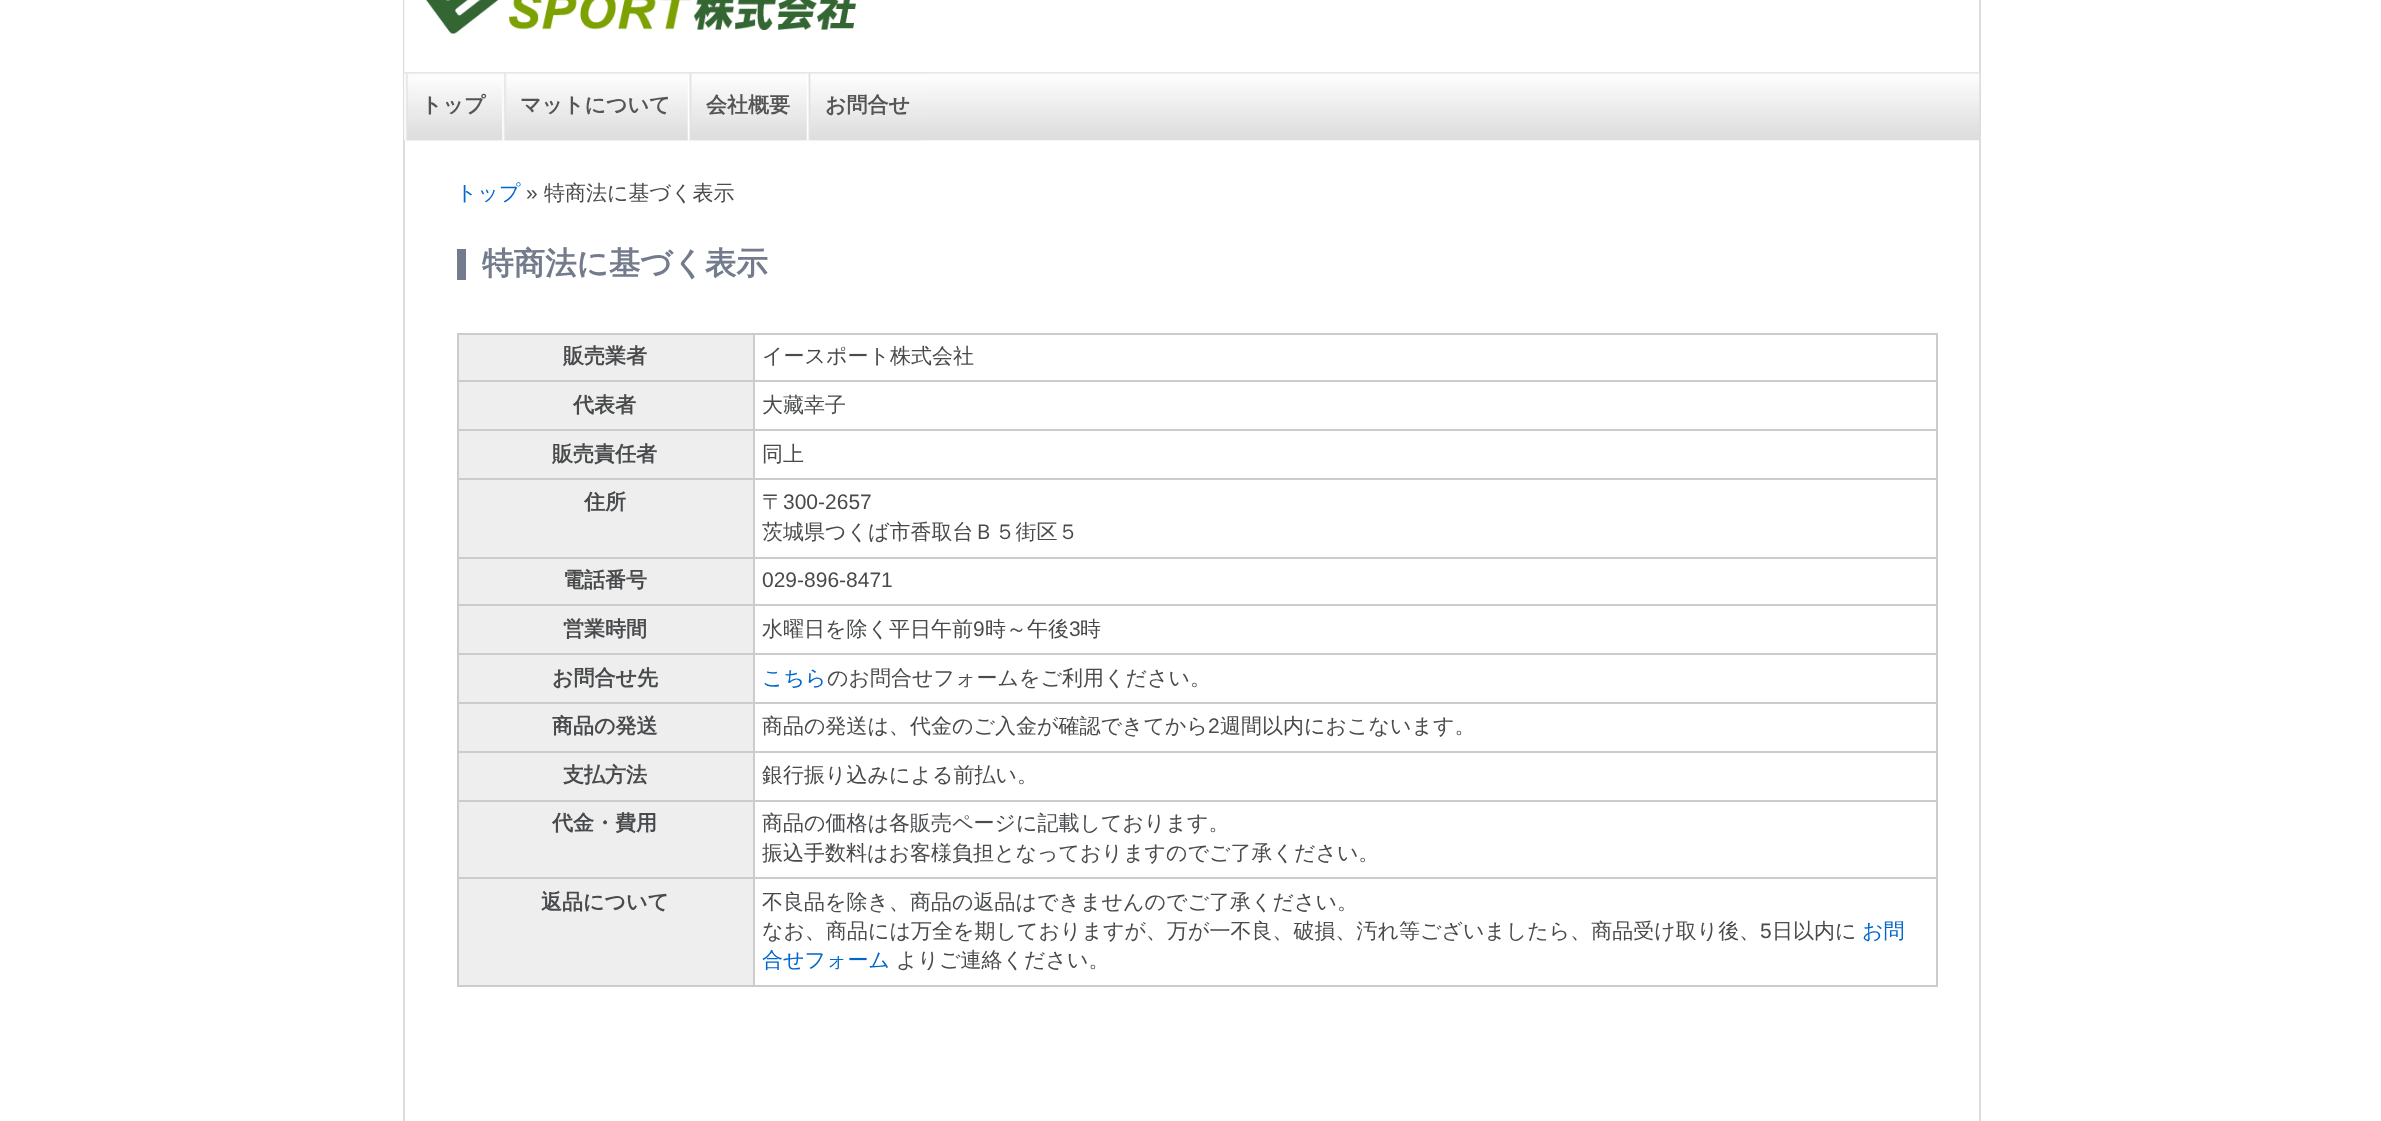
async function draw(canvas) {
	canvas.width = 2381;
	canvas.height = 1121;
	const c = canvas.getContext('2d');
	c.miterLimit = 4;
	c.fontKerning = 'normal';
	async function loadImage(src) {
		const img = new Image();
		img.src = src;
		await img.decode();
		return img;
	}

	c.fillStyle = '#fff';
	c.fillRect(0, 0, 2381, 1121);
	c.fillStyle = '#ddd';
	c.fillRect(1979, 0, 2, 1121);
	c.fillRect(403, 0, 2, 1121);
	c.drawImage(await loadImage('img1.png'), 404, 0, 452, 72);
	c.drawImage(await loadImage('img2.png'), 404, 72, 1576, 69);
	c.drawImage(await loadImage('img3.png'), 404, 73, 98, 68);
	c.font = 'bold 21px WenQuanYi Zen Hei';
	c.fillStyle = '#555';
	c.fillText('トップ', 421, 112);
	c.drawImage(await loadImage('img4.png'), 502, 73, 186, 68);
	c.fillText('マットについて', 520, 112);
	c.drawImage(await loadImage('img5.png'), 687, 73, 120, 68);
	c.fillText('会社概要', 706, 112);
	c.drawImage(await loadImage('img6.png'), 806, 73, 121, 68);
	c.fillText('お問合せ', 825, 112);
	c.font = '500 21px WenQuanYi Zen Hei';
	c.fillStyle = '#06c';
	c.fillText('トップ', 456, 200);
	c.font = '21px Liberation Sans';
	c.fillStyle = '#484a4c';
	c.fillText('»', 526, 200);
	c.font = '500 21px WenQuanYi Zen Hei';
	c.fillText('特商法に基づく表示', 544, 200);
	c.fillStyle = '#737b8c';
	c.fillRect(457, 249, 9, 31);
	c.font = 'bold 31.5px WenQuanYi Zen Hei';
	c.fillText('特商法に基づく表示', 482, 274);
	for (const [x, y, w, h, color] of [
		[459, 335, 294, 45, '#eee'],
		[753, 333, 1184, 2, '#ccc'],
		[753, 380, 1184, 2, '#ccc'],
		[753, 429, 1184, 2, '#ccc'],
		[753, 478, 1184, 2, '#ccc'],
		[753, 557, 1184, 2, '#ccc'],
		[753, 604, 1184, 2, '#ccc'],
		[753, 653, 1184, 2, '#ccc'],
		[753, 702, 1184, 2, '#ccc'],
		[753, 751, 1184, 2, '#ccc'],
		[753, 800, 1184, 2, '#ccc'],
		[753, 877, 1184, 2, '#ccc'],
		[1936, 877, 2, 110, '#ccc'],
		[753, 985, 1184, 2, '#ccc'],
		[753, 877, 2, 110, '#ccc'],
		[457, 877, 297, 2, '#ccc'],
		[753, 800, 2, 79, '#ccc'],
		[457, 800, 297, 2, '#ccc'],
		[753, 751, 2, 51, '#ccc'],
		[457, 751, 297, 2, '#ccc'],
		[753, 702, 2, 51, '#ccc'],
		[457, 702, 297, 2, '#ccc'],
		[753, 653, 2, 51, '#ccc'],
		[457, 653, 297, 2, '#ccc'],
		[753, 604, 2, 51, '#ccc'],
		[457, 604, 297, 2, '#ccc'],
		[753, 557, 2, 49, '#ccc'],
		[457, 557, 297, 2, '#ccc'],
		[753, 478, 2, 80, '#ccc'],
		[457, 478, 297, 2, '#ccc'],
		[753, 429, 2, 51, '#ccc'],
		[457, 429, 297, 2, '#ccc'],
		[753, 380, 2, 51, '#ccc'],
		[457, 380, 297, 2, '#ccc'],
		[753, 333, 2, 49, '#ccc'],
		[457, 333, 297, 2, '#ccc'],
		[457, 985, 297, 2, '#ccc'],
		[457, 877, 2, 110, '#ccc'],
		[457, 800, 2, 79, '#ccc'],
		[457, 751, 2, 51, '#ccc'],
		[457, 702, 2, 51, '#ccc'],
		[457, 653, 2, 51, '#ccc'],
		[457, 604, 2, 51, '#ccc'],
		[457, 557, 2, 49, '#ccc'],
		[457, 478, 2, 80, '#ccc'],
		[457, 429, 2, 51, '#ccc'],
		[457, 380, 2, 51, '#ccc'],
		[457, 333, 2, 49, '#ccc'],
	]) {
		c.fillStyle = color;
		c.fillRect(x, y, w, h);
	}
	c.font = 'bold 21px WenQuanYi Zen Hei';
	c.fillStyle = '#484a4c';
	c.fillText('販売業者', 563, 363);
	for (const [x, y, w, h, color] of [
		[1936, 800, 2, 79, '#ccc'],
		[1936, 751, 2, 51, '#ccc'],
		[1936, 702, 2, 51, '#ccc'],
		[1936, 653, 2, 51, '#ccc'],
		[1936, 604, 2, 51, '#ccc'],
		[1936, 557, 2, 49, '#ccc'],
		[1936, 478, 2, 80, '#ccc'],
		[1936, 429, 2, 51, '#ccc'],
		[1936, 380, 2, 51, '#ccc'],
		[1936, 333, 2, 49, '#ccc'],
	]) {
		c.fillStyle = color;
		c.fillRect(x, y, w, h);
	}
	c.font = '500 21px WenQuanYi Zen Hei';
	c.fillStyle = '#484a4c';
	c.fillText('イースポート株式会社', 762, 363);
	c.fillStyle = '#eee';
	c.fillRect(459, 382, 294, 47);
	c.font = 'bold 21px WenQuanYi Zen Hei';
	c.fillStyle = '#484a4c';
	c.fillText('代表者', 573, 412);
	c.font = '500 21px WenQuanYi Zen Hei';
	c.fillText('大藏幸子', 762, 412);
	c.fillStyle = '#eee';
	c.fillRect(459, 431, 294, 47);
	c.font = 'bold 21px WenQuanYi Zen Hei';
	c.fillStyle = '#484a4c';
	c.fillText('販売責任者', 552, 461);
	c.font = '500 21px WenQuanYi Zen Hei';
	c.fillText('同上', 762, 461);
	c.fillStyle = '#eee';
	c.fillRect(459, 480, 294, 77);
	c.font = 'bold 21px WenQuanYi Zen Hei';
	c.fillStyle = '#484a4c';
	c.fillText('住所', 584, 509);
	c.font = '500 21px WenQuanYi Zen Hei';
	c.fillText('〒', 762, 509);
	c.font = '21px Liberation Sans';
	c.fillText('300-2657', 783, 509);
	c.font = '500 21px WenQuanYi Zen Hei';
	c.fillText('茨城県つくば市香取台Ｂ５街区５', 762, 539);
	c.fillStyle = '#eee';
	c.fillRect(459, 559, 294, 45);
	c.font = 'bold 21px WenQuanYi Zen Hei';
	c.fillStyle = '#484a4c';
	c.fillText('電話番号', 563, 587);
	c.font = '21px Liberation Sans';
	c.fillText('029-896-8471', 762, 587);
	c.fillStyle = '#eee';
	c.fillRect(459, 606, 294, 47);
	c.font = 'bold 21px WenQuanYi Zen Hei';
	c.fillStyle = '#484a4c';
	c.fillText('営業時間', 563, 636);
	c.font = '500 21px WenQuanYi Zen Hei';
	c.fillText('水曜日を除く平日午前', 762, 636);
	c.font = '21px Liberation Sans';
	c.fillText('9', 973, 636);
	c.font = '500 21px WenQuanYi Zen Hei';
	c.fillText('時～午後', 985, 636);
	c.font = '21px Liberation Sans';
	c.fillText('3', 1069, 636);
	c.font = '500 21px WenQuanYi Zen Hei';
	c.fillText('時', 1080, 636);
	c.fillStyle = '#eee';
	c.fillRect(459, 655, 294, 47);
	c.font = 'bold 21px WenQuanYi Zen Hei';
	c.fillStyle = '#484a4c';
	c.fillText('お問合せ先', 552, 685);
	c.font = '500 21px WenQuanYi Zen Hei';
	c.fillStyle = '#06c';
	c.fillText('こちら', 762, 685);
	c.fillStyle = '#484a4c';
	c.fillText('のお問合せフォームをご利用ください。', 827, 685);
	c.fillStyle = '#eee';
	c.fillRect(459, 704, 294, 47);
	c.font = 'bold 21px WenQuanYi Zen Hei';
	c.fillStyle = '#484a4c';
	c.fillText('商品の発送', 552, 733);
	c.font = '500 21px WenQuanYi Zen Hei';
	c.fillText('商品の発送は、代金のご入金が確認できてから', 762, 733);
	c.font = '21px Liberation Sans';
	c.fillText('2', 1208, 733);
	c.font = '500 21px WenQuanYi Zen Hei';
	c.fillText('週間以内におこないます。', 1220, 733);
	c.fillStyle = '#eee';
	c.fillRect(459, 753, 294, 47);
	c.font = 'bold 21px WenQuanYi Zen Hei';
	c.fillStyle = '#484a4c';
	c.fillText('支払方法', 563, 782);
	c.font = '500 21px WenQuanYi Zen Hei';
	c.fillText('銀行振り込みによる前払い。', 762, 782);
	c.fillStyle = '#eee';
	c.fillRect(459, 802, 294, 75);
	c.font = 'bold 21px WenQuanYi Zen Hei';
	c.fillStyle = '#484a4c';
	c.fillText('代金・費用', 552, 830);
	c.font = '500 21px WenQuanYi Zen Hei';
	c.fillText('商品の価格は各販売ページに記載しております。', 762, 830);
	c.fillText('振込手数料はお客様負担となっておりますのでご了承ください。', 762, 860);
	c.fillStyle = '#eee';
	c.fillRect(459, 879, 294, 106);
	c.font = 'bold 21px WenQuanYi Zen Hei';
	c.fillStyle = '#484a4c';
	c.fillText('返品について', 541, 909);
	c.font = '500 21px WenQuanYi Zen Hei';
	c.fillText('不良品を除き、商品の返品はできませんのでご了承ください。', 762, 909);
	c.fillText('なお、商品には万全を期しておりますが、万が一不良、破損、汚れ等ございましたら、商品受け取り後、', 762, 938);
	c.font = '21px Liberation Sans';
	c.fillText('5', 1760, 938);
	c.font = '500 21px WenQuanYi Zen Hei';
	c.fillText('日以内に', 1772, 938);
	c.fillStyle = '#06c';
	c.fillText('お問', 1862, 938);
	c.fillText('合せフォーム', 762, 967);
	c.fillStyle = '#484a4c';
	c.fillText('よりご連絡ください。', 896, 967);
}

draw(document.querySelector('canvas'));
